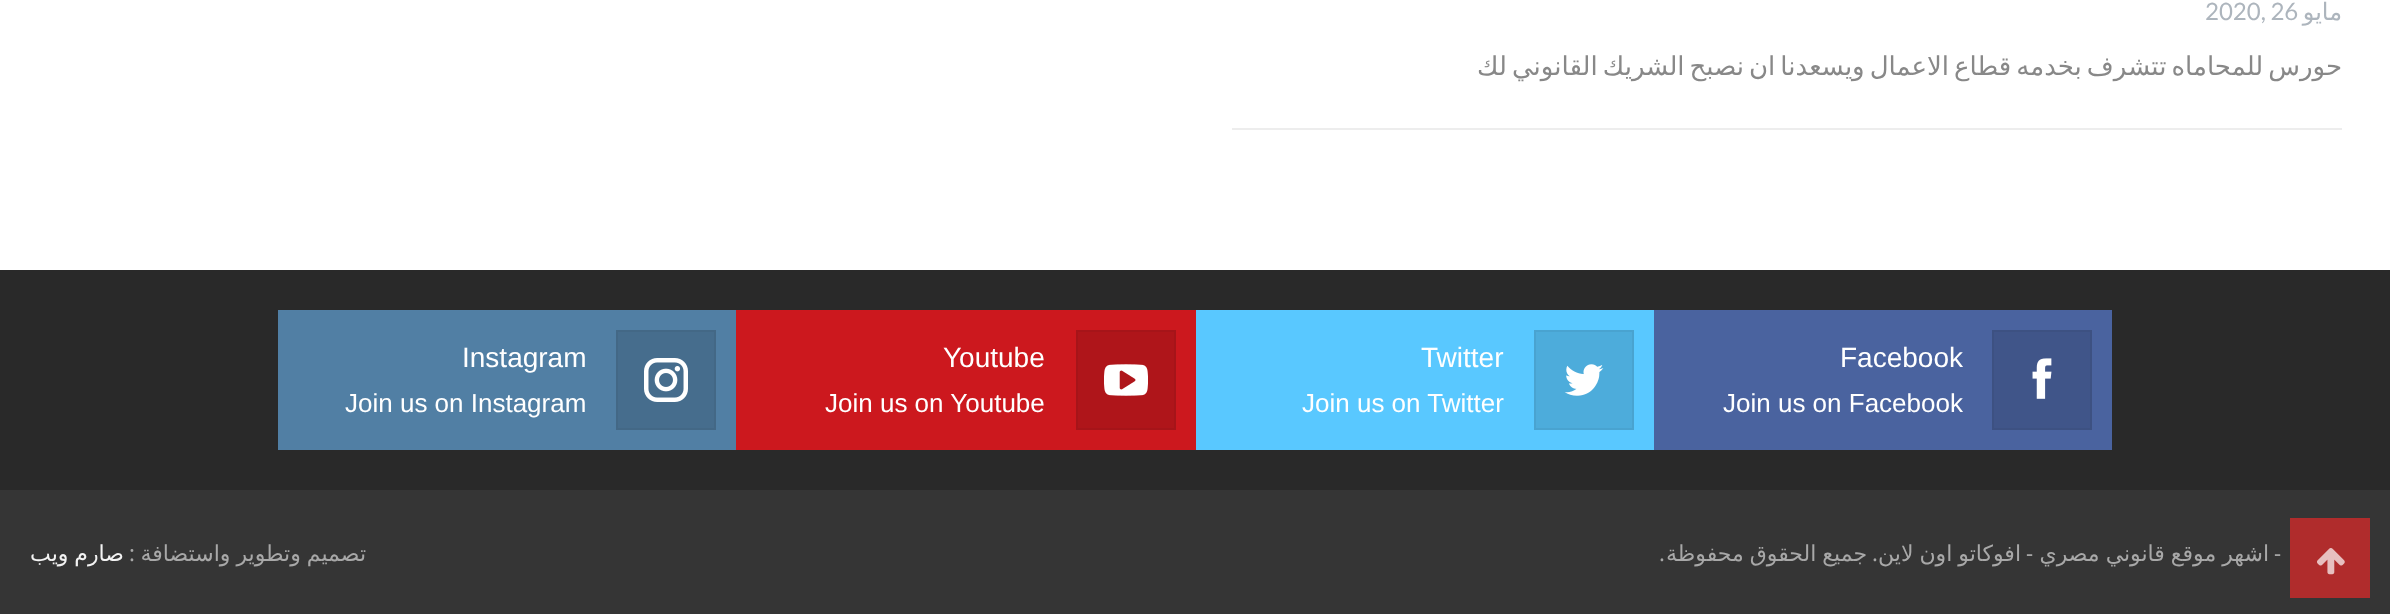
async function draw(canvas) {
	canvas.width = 2390;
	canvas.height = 614;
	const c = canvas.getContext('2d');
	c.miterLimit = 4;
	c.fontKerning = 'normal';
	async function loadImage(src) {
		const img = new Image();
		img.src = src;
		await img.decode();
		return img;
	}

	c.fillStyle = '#fff';
	c.fillRect(0, 0, 2390, 614);
	c.direction = 'rtl';
	c.font = '24px DejaVu Sans';
	c.fillStyle = '#adb5bd';
	c.fillText('مايو', 2342, 20);
	c.direction = 'ltr';
	c.font = '24px Lato';
	c.fillText('2020, 26', 2205, 20);
	c.fillStyle = '#ededed';
	c.fillRect(1232, 128, 1110, 2);
	c.wordSpacing = '-3.25px';
	c.direction = 'rtl';
	c.font = '26px DejaVu Sans';
	c.fillStyle = '#888';
	c.fillText('حورس للمحاماه تتشرف بخدمه قطاع الاعمال ويسعدنا ان نصبح الشريك القانوني لك', 2342, 75);
	c.fillStyle = '#292929';
	c.fillRect(0, 270, 2390, 220);
	c.fillStyle = '#4a639f';
	c.fillRect(1654, 310, 458, 140);
	c.fillStyle = '#405589';
	c.beginPath();
	c.rect(1993, 331, 98, 98);
	c.fill();
	c.strokeStyle = '#3d5182';
	c.lineWidth = 2;
	c.stroke();
	c.drawImage(await loadImage('img1.png'), 2032, 358, 20, 41);
	c.wordSpacing = '0px';
	c.direction = 'ltr';
	c.font = '28px Liberation Sans';
	c.fillStyle = '#fff';
	c.fillText('Facebook', 1840, 367);
	c.font = '26px Liberation Sans';
	c.fillText('Join us on Facebook', 1723, 412);
	c.fillStyle = '#59c8ff';
	c.fillRect(1196, 310, 458, 140);
	c.fillStyle = '#4dacdb';
	c.beginPath();
	c.rect(1535, 331, 98, 98);
	c.fill();
	c.strokeStyle = '#49a3d0';
	c.stroke();
	c.drawImage(await loadImage('img2.png'), 1564, 364, 40, 32);
	c.font = '28px Liberation Sans';
	c.fillStyle = '#fff';
	c.fillText('Twitter', 1421, 367);
	c.font = '26px Liberation Sans';
	c.fillText('Join us on Twitter', 1302, 412);
	c.fillStyle = '#cc181e';
	c.fillRect(736, 310, 460, 140);
	c.fillStyle = '#af151a';
	c.beginPath();
	c.rect(1077, 331, 98, 98);
	c.fill();
	c.strokeStyle = '#a61419';
	c.stroke();
	c.drawImage(await loadImage('img3.png'), 1104, 364, 44, 32);
	c.font = '28px Liberation Sans';
	c.fillStyle = '#fff';
	c.fillText('Youtube', 943, 367);
	c.font = '26px Liberation Sans';
	c.fillText('Join us on Youtube', 825, 412);
	c.fillStyle = '#517fa4';
	c.fillRect(278, 310, 458, 140);
	c.fillStyle = '#466d8d';
	c.beginPath();
	c.rect(617, 331, 98, 98);
	c.fill();
	c.strokeStyle = '#436886';
	c.stroke();
	c.drawImage(await loadImage('img4.png'), 644, 358, 44, 44);
	c.font = '28px Liberation Sans';
	c.fillStyle = '#fff';
	c.fillText('Instagram', 462, 367);
	c.font = '26px Liberation Sans';
	c.fillText('Join us on Instagram', 345, 412);
	c.fillStyle = '#353535';
	c.fillRect(0, 490, 2390, 124);
	c.direction = 'rtl';
	c.font = '22px Noto Sans';
	c.fillStyle = '#a8a8a8';
	c.fillText('-', 2281, 561);
	c.wordSpacing = '-1px';
	c.font = '22px DejaVu Sans';
	c.fillText('اشهر موقع قانوني مصري', 2269, 561);
	c.wordSpacing = '0px';
	c.font = '22px Noto Sans';
	c.fillText('-', 2033, 561);
	c.wordSpacing = '-1px';
	c.font = '22px DejaVu Sans';
	c.fillText('افوكاتو اون لاين', 2021, 561);
	c.fillText('جميع الحقوق محفوظة', 1867, 561);
	c.wordSpacing = '0px';
	c.font = '22px Noto Sans';
	c.fillText('.', 1878, 561);
	c.fillText('.', 1665, 561);
	c.wordSpacing = '-1px';
	c.font = '22px DejaVu Sans';
	c.fillText('تصميم وتطوير واستضافة', 366, 561);
	c.wordSpacing = '0px';
	c.font = '22px Noto Sans';
	c.fillText(':', 135, 561);
	c.wordSpacing = '-1px';
	c.font = '22px DejaVu Sans';
	c.fillStyle = '#f3f3f3';
	c.fillText('صارم ويب', 124, 561);
	c.fillStyle = '#e62929b3';
	c.fillRect(2290, 518, 80, 80);
	c.drawImage(await loadImage('img5.png'), 2317, 548, 28, 27);
}

draw(document.querySelector('canvas'));
